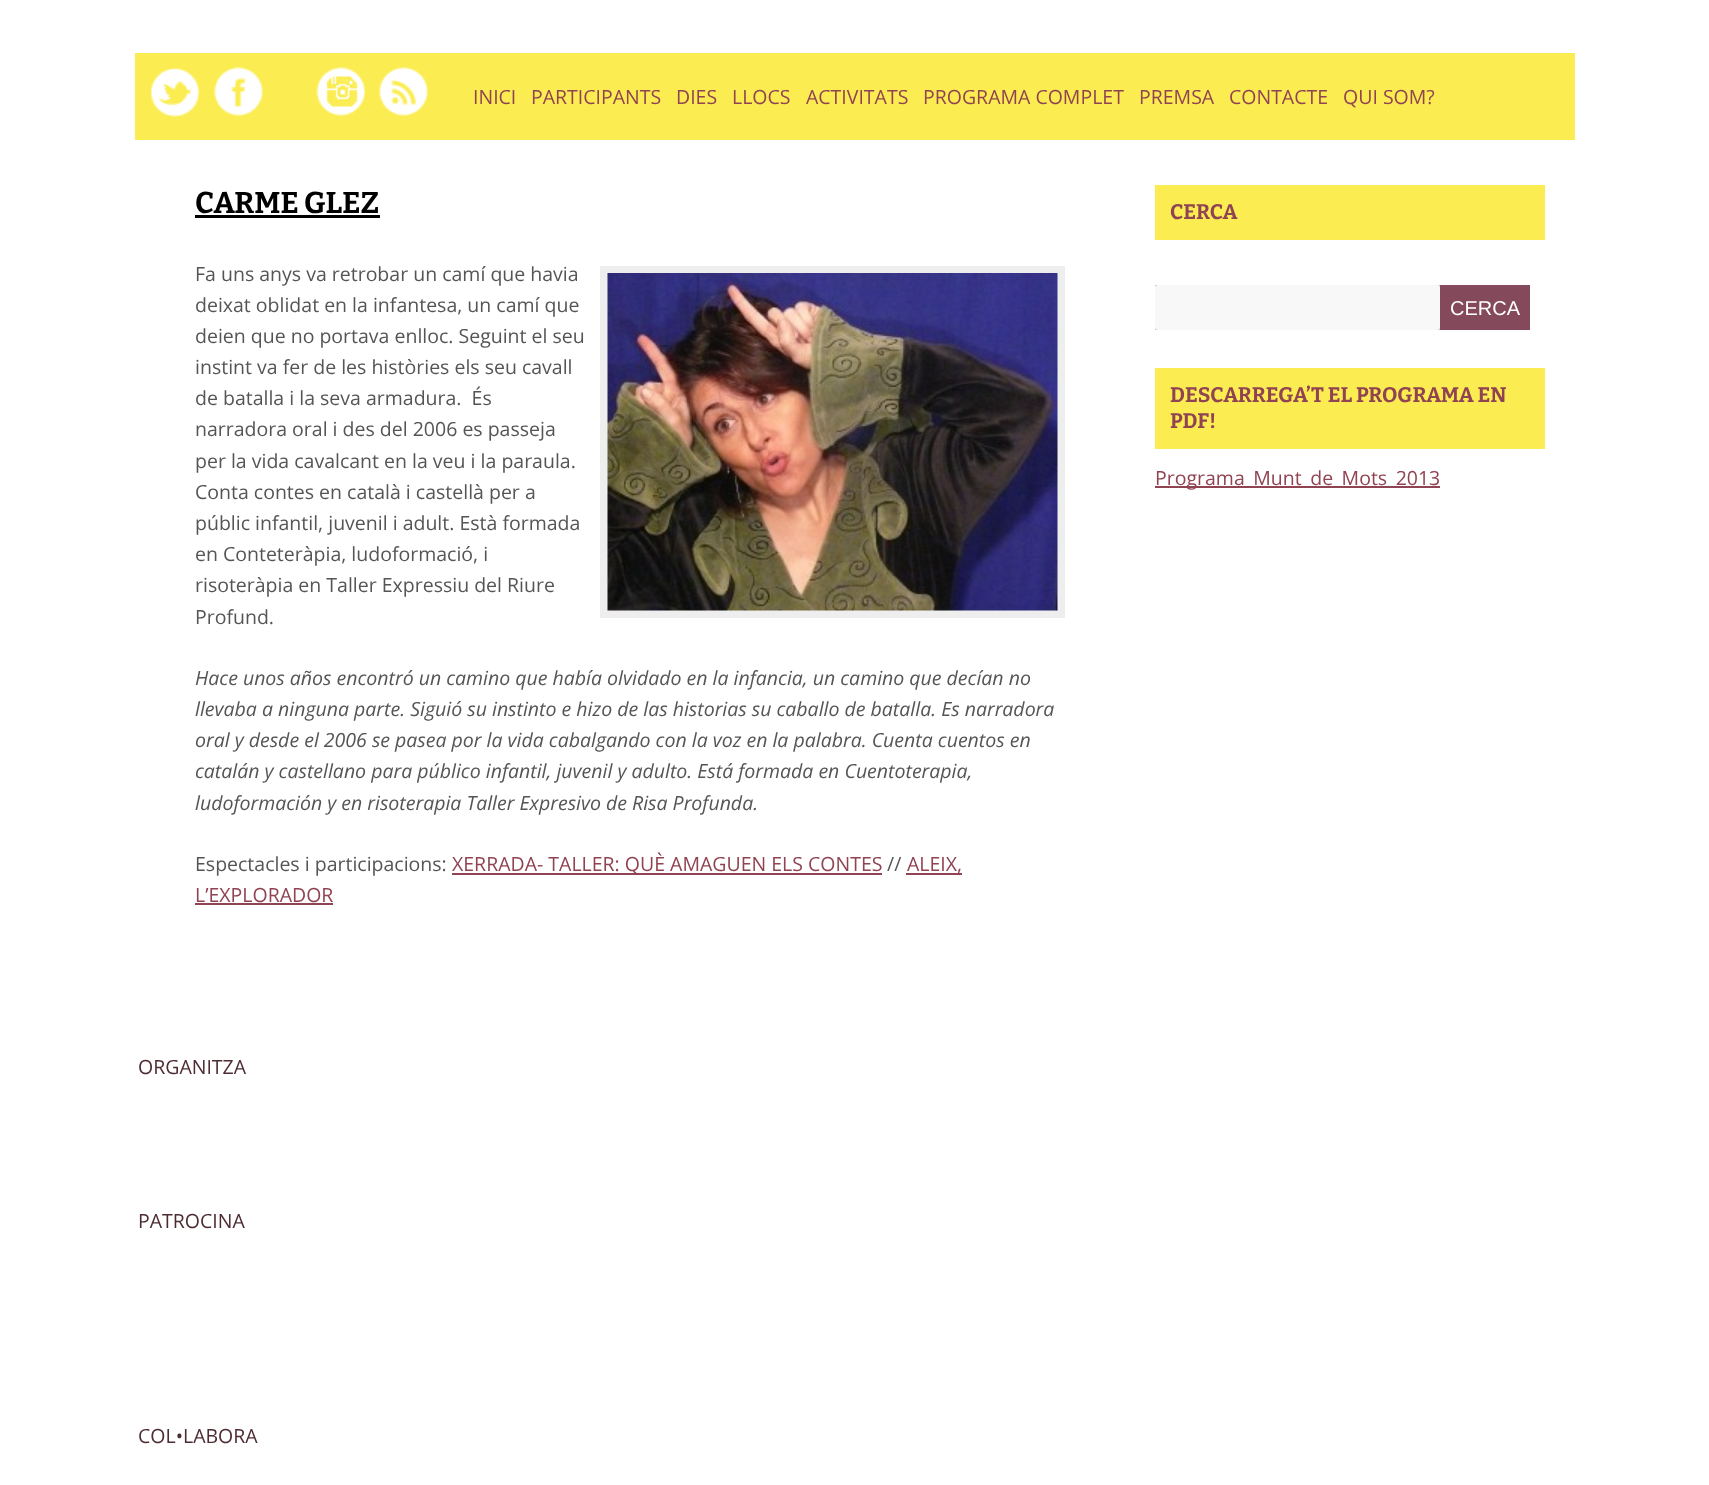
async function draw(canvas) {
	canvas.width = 1709;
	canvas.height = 1485;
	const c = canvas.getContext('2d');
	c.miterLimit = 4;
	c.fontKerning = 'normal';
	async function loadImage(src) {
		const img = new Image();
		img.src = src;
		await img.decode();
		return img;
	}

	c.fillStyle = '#fff';
	c.fillRect(0, 0, 1709, 1485);
	c.fillStyle = '#fbed51';
	c.fillRect(135, 53, 1440, 87);
	c.drawImage(await loadImage('img1.png'), 150, 67, 50, 50);
	c.drawImage(await loadImage('img2.png'), 214, 67, 49, 49);
	c.drawImage(await loadImage('img3.png'), 316, 67, 49, 49);
	c.drawImage(await loadImage('img4.png'), 379, 67, 49, 49);
	c.font = '19.5px Open Sans';
	c.fillStyle = '#904352';
	for (const [text, x, y] of [
		['INICI', 473, 104],
		['PARTICIPANTS', 531, 104],
		['DIES', 676, 104],
		['LLOCS', 732, 104],
		['ACTIVITATS', 806, 104],
		['PROGRAMA COMPLET', 923, 104],
		['PREMSA', 1139, 104],
		['CONTACTE', 1229, 104],
		['QUI SOM?', 1343, 104],
	]) {
		c.fillText(text, x, y);
	}
	c.font = 'bold 30px Bitter';
	c.fillStyle = '#000';
	c.fillText('CARME GLEZ', 195, 213);
	c.fillRect(195, 215, 185, 3);
	c.font = '19.5px Open Sans';
	c.fillStyle = '#555';
	c.fillText('Fa uns anys va retrobar un camí que havia', 195, 281);
	c.fillStyle = '#eee';
	c.fillRect(600, 266, 465, 352);
	c.drawImage(await loadImage('img5.png'), 607, 273, 451, 338);
	c.fillStyle = '#555';
	for (const [text, x, y] of [
		['deixat oblidat en la infantesa, un camí que', 195, 312],
		['deien que no portava enlloc. Seguint el seu', 195, 343],
		['instint va fer de les històries els seu cavall', 195, 374],
		['de batalla i la seva armadura.  És', 195, 405],
		['narradora oral i des del 2006 es passeja', 195, 436],
		['per la vida cavalcant en la veu i la paraula.', 195, 468],
		['Conta contes en català i castellà per a', 195, 499],
		['públic infantil, juvenil i adult. Està formada', 195, 530],
		['en Conteteràpia, ludoformació, i', 195, 561],
		['risoteràpia en Taller Expressiu del Riure', 195, 592],
		['Profund.', 195, 624],
	]) {
		c.fillText(text, x, y);
	}
	c.font = 'italic 19.5px Open Sans';
	for (const [text, x, y] of [
		['Hace unos años encontró un camino que había olvidado en la infancia, un camino que decían no', 195, 685],
		['llevaba a ninguna parte. Siguió su instinto e hizo de las historias su caballo de batalla. Es narradora', 195, 716],
		['oral y desde el 2006 se pasea por la vida cabalgando con la voz en la palabra. Cuenta cuentos en', 195, 747],
		['catalán y castellano para público infantil, juvenil y adulto. Está formada en Cuentoterapia,', 195, 778],
		['ludoformación y en risoterapia Taller Expresivo de Risa Profunda.', 195, 810],
	]) {
		c.fillText(text, x, y);
	}
	c.font = '19.5px Open Sans';
	c.fillText('Espectacles i participacions:', 195, 871);
	c.fillStyle = '#904352';
	c.fillRect(452, 873, 430, 2);
	c.fillText('XERRADA- TALLER: QUÈ AMAGUEN ELS CONTES', 452, 871);
	c.fillStyle = '#555';
	c.fillText('//', 887, 871);
	c.fillStyle = '#904352';
	c.fillRect(906, 873, 56, 2);
	c.fillText('ALEIX,', 907, 871);
	c.fillText('L’EXPLORADOR', 195, 902);
	c.fillRect(195, 903, 138, 2);
	c.fillStyle = '#fbed51';
	c.fillRect(1155, 185, 390, 55);
	c.font = 'bold 21px Bitter';
	c.fillStyle = '#904352';
	c.fillText('CERCA', 1170, 219);
	c.fillStyle = '#c4c2c2';
	c.fillRect(1155, 285, 285, 45);
	c.fillStyle = '#f8f8f8';
	c.beginPath();
	c.roundRect(1155, 285, 285, 45, 3);
	c.fill();
	c.fillStyle = '#844a5c';
	c.fillRect(1440, 285, 90, 45);
	c.font = '20px Liberation Sans';
	c.fillStyle = '#fff';
	c.fillText('CERCA', 1450, 315);
	c.fillStyle = '#fbed51';
	c.fillRect(1155, 368, 390, 81);
	c.font = 'bold 21px Bitter';
	c.fillStyle = '#904352';
	c.fillText('DESCARREGA’T EL PROGRAMA EN', 1170, 402);
	c.fillText('PDF!', 1170, 428);
	c.fillRect(1155, 486, 285, 2);
	c.font = '19.5px Open Sans';
	c.fillText('Programa_Munt_de_Mots_2013', 1155, 485);
	c.fillStyle = '#4d2c32';
	for (const [text, x, y] of [
		['ORGANITZA', 138, 1074],
		['PATROCINA', 138, 1228],
		['COL•LABORA', 138, 1443],
	]) {
		c.fillText(text, x, y);
	}
}

draw(document.querySelector('canvas'));
